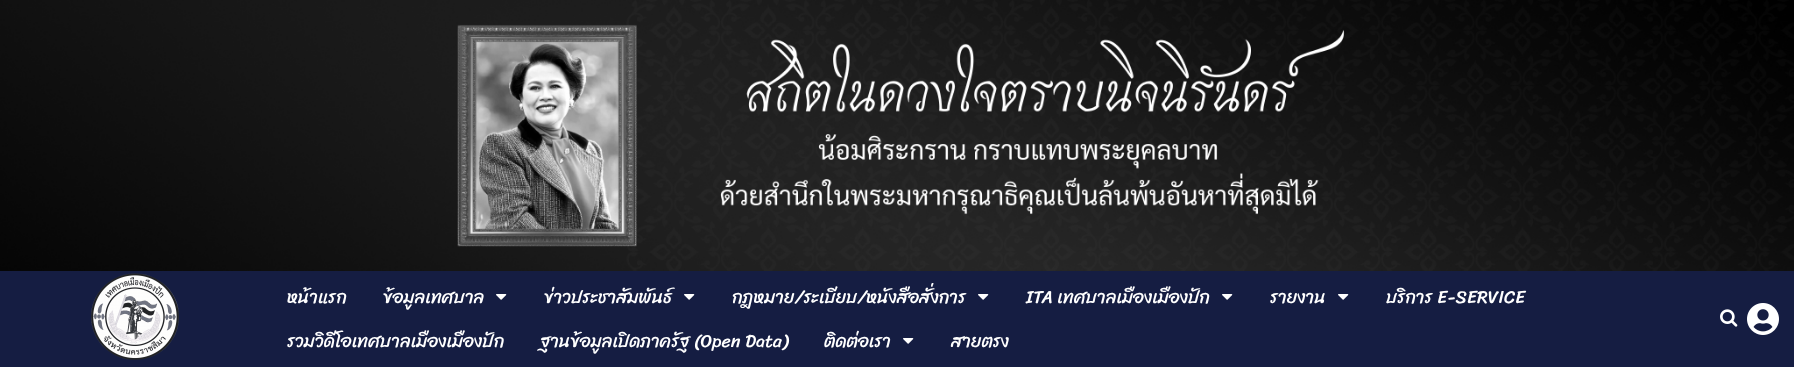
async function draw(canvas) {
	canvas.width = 1794;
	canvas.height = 378;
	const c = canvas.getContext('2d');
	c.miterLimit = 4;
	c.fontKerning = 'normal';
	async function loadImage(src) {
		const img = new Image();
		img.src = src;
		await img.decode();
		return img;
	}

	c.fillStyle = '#fff';
	c.fillRect(0, 0, 1794, 378);
	c.drawImage(await loadImage('img1.png'), 0, 0, 1794, 271);
	c.fillStyle = '#151d42';
	c.fillRect(0, 271, 1794, 96);
	c.drawImage(await loadImage('img2.png'), 91, 273, 88, 87);
	c.font = '18px Sriracha';
	c.fillStyle = '#fff';
	c.fillText('หน้าแรก', 287, 303);
	c.fillText('ข้อมูลเทศบาล', 383, 303);
	c.drawImage(await loadImage('img3.png'), 496, 294, 11, 6);
	c.fillText('ข่าวประชาสัมพันธ์', 544, 303);
	c.drawImage(await loadImage('img3.png'), 684, 294, 11, 6);
	c.fillText('กฎหมาย/ระเบียบ/หนังสือสั่งการ', 732, 303);
	c.drawImage(await loadImage('img3.png'), 978, 294, 11, 6);
	c.fillText('ITA เทศบาลเมืองเมืองปัก', 1026, 303);
	c.drawImage(await loadImage('img3.png'), 1222, 294, 11, 6);
	c.fillText('รายงาน', 1270, 303);
	c.drawImage(await loadImage('img3.png'), 1338, 294, 11, 6);
	for (const [text, x, y] of [
		['บริการ E-SERVICE', 1386, 303],
		['รวมวิดีโอเทศบาลเมืองเมืองปัก', 287, 347],
		['ฐานข้อมูลเปิดภาครัฐ (Open Data)', 540, 347],
		['ติดต่อเรา', 824, 347],
	]) {
		c.fillText(text, x, y);
	}
	c.drawImage(await loadImage('img3.png'), 903, 338, 11, 6);
	c.fillText('สายตรง', 951, 347);
	c.drawImage(await loadImage('img4.png'), 1720, 309, 18, 18);
	c.drawImage(await loadImage('img5.png'), 1747, 303, 32, 32);
}

draw(document.querySelector('canvas'));
